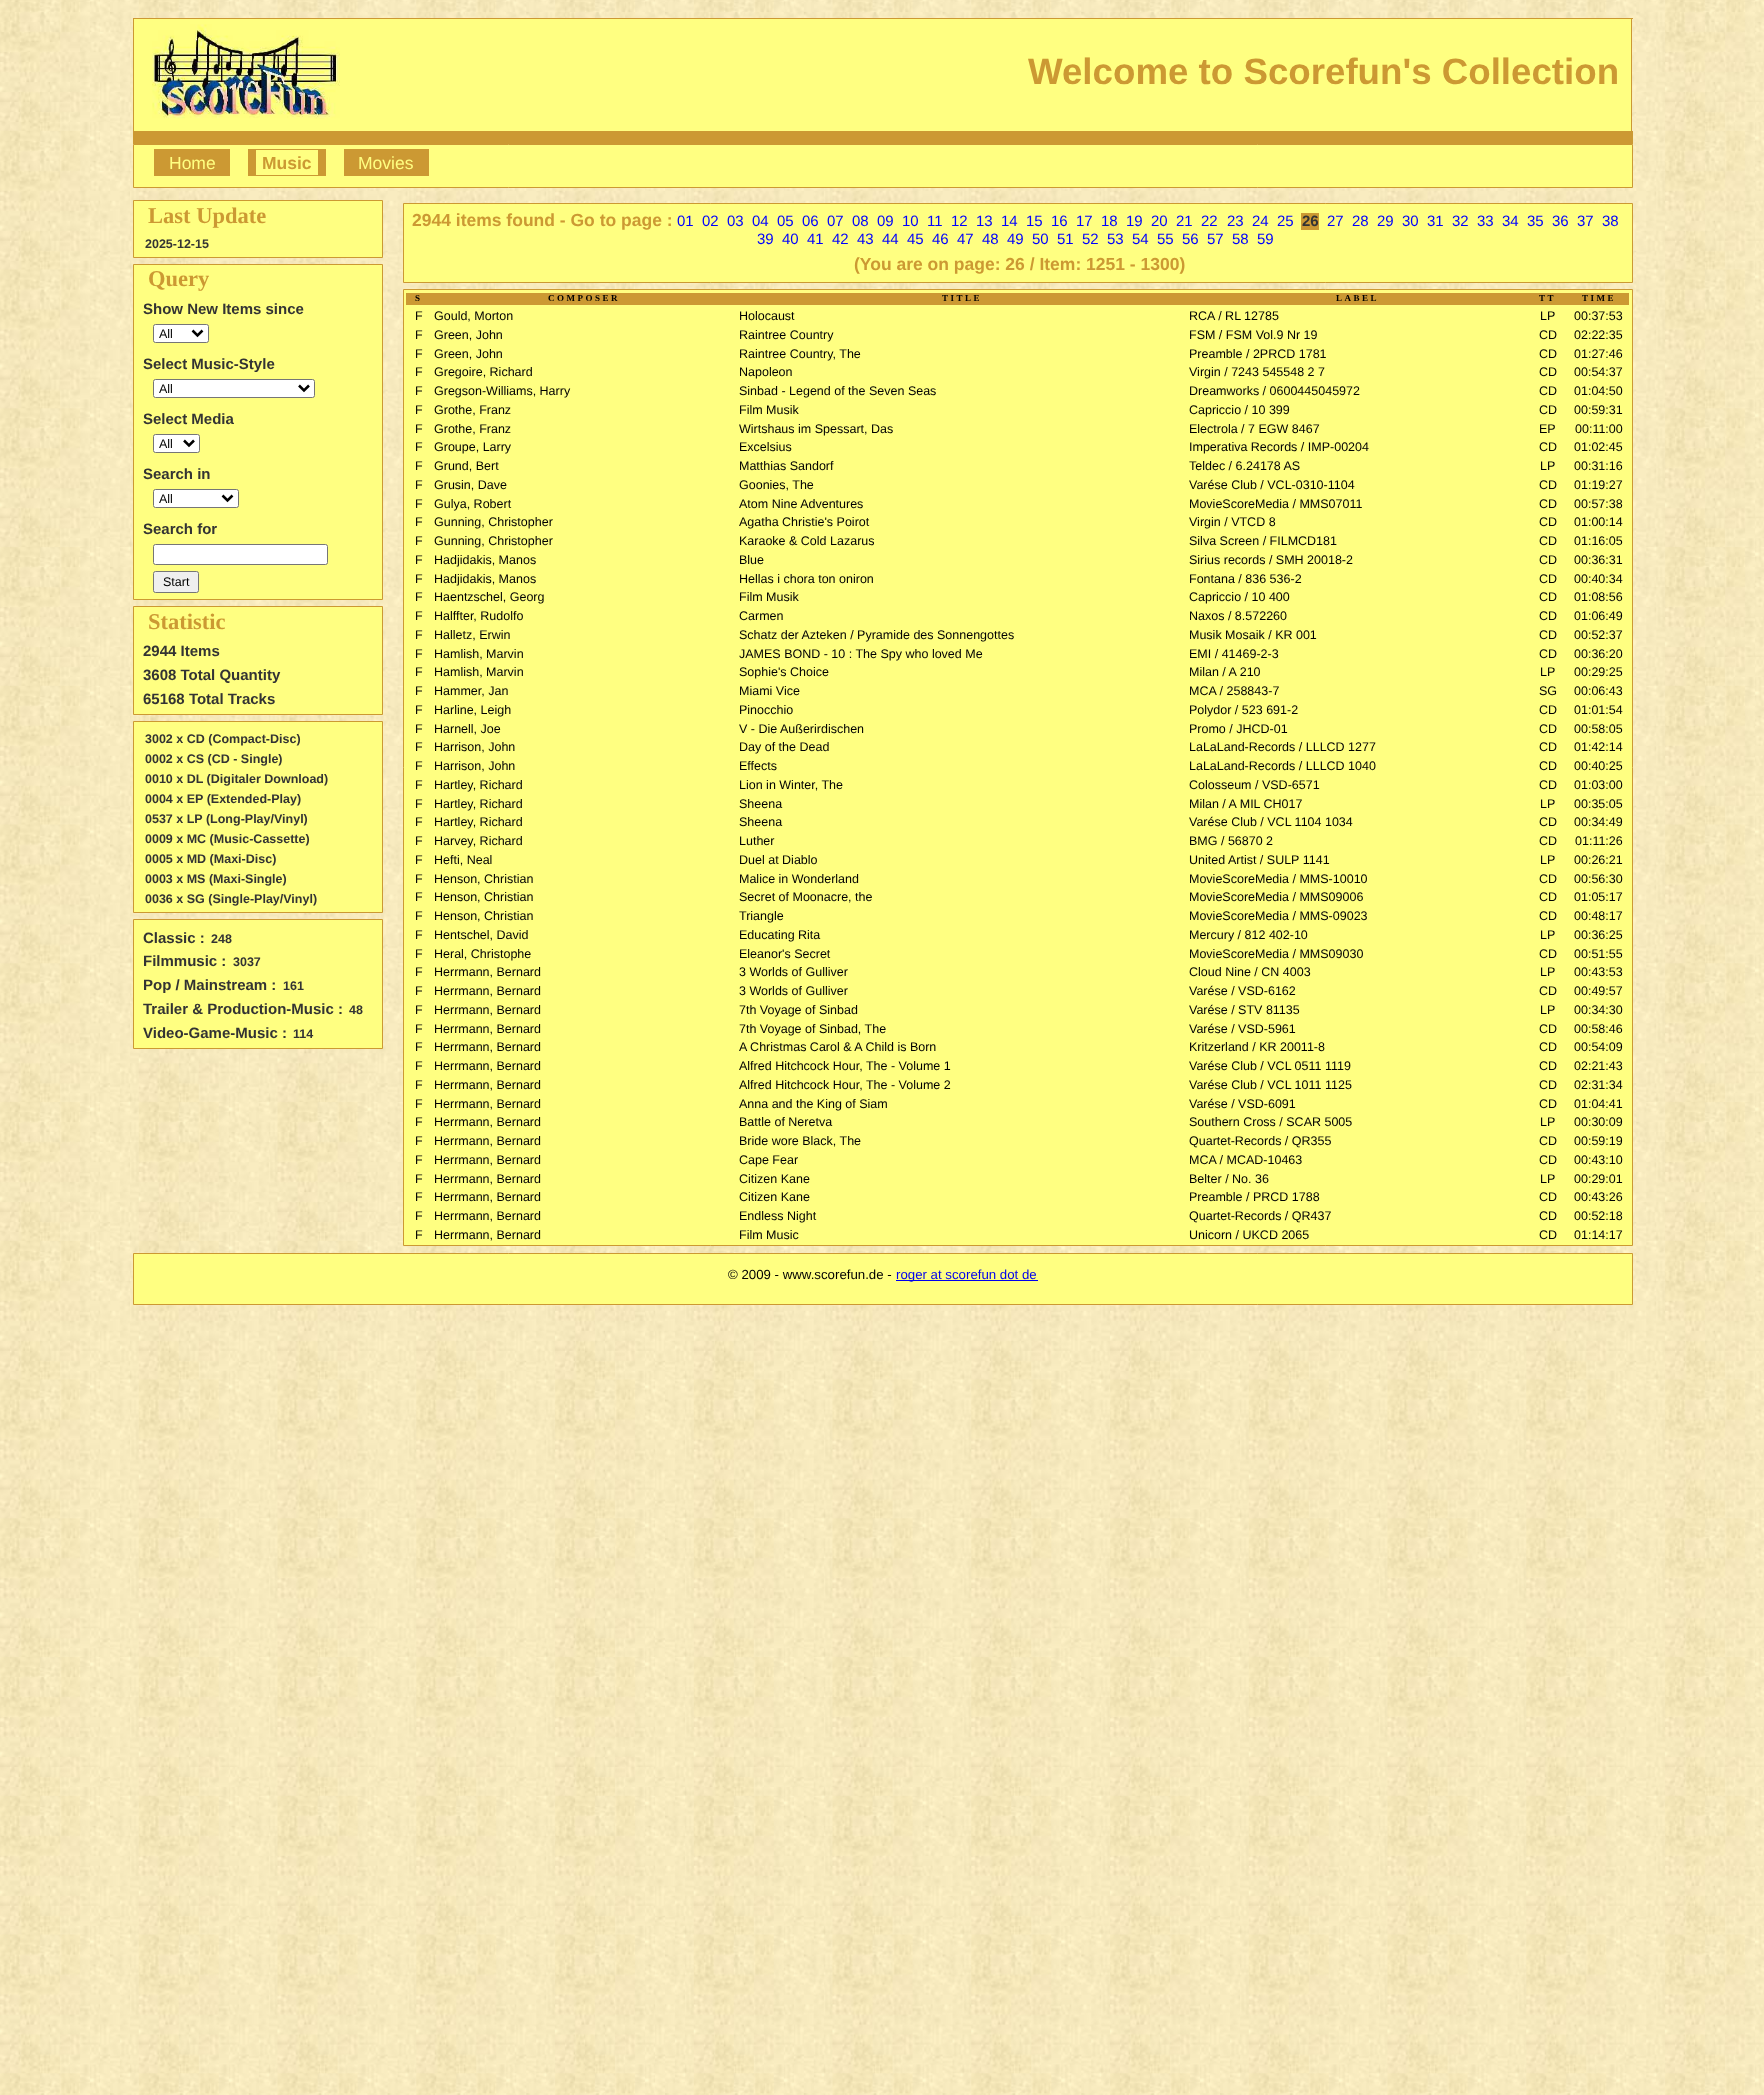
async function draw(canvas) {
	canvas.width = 1764;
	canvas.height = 2095;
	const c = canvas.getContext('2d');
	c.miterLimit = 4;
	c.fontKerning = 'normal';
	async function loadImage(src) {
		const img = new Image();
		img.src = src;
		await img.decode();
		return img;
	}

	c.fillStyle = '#fff';
	c.fillRect(0, 0, 1764, 2095);
	c.drawImage(await loadImage('img1.png'), 0, 0, 1764, 2095);
	for (const [x, y, w, h, color] of [
		[134, 19, 1497, 112, '#ffff81'],
		[133, 18, 1500, 1, '#c93'],
		[1631, 18, 1, 113, '#c93'],
		[134, 131, 1499, 13, '#c93'],
		[133, 18, 1, 126, '#c93'],
	]) {
		c.fillStyle = color;
		c.fillRect(x, y, w, h);
	}
	c.drawImage(await loadImage('img2.png'), 152, 24, 188, 95);
	c.font = 'bold 36.7px Liberation Sans';
	c.fillText('Welcome to Scorefun\'s Collection', 1028, 84);
	c.fillStyle = '#ffff81';
	c.beginPath();
	c.rect(133.5, 144.5, 1499, 43);
	c.fill();
	c.strokeStyle = '#c93';
	c.stroke();
	c.fillStyle = '#c93';
	c.fillRect(154, 149, 76, 27);
	c.font = '17.5px Liberation Sans';
	c.fillStyle = '#ffff81';
	c.fillText('Home', 169, 169);
	c.fillStyle = '#c93';
	c.fillRect(248, 149, 78, 27);
	c.fillStyle = '#ffff81';
	c.fillRect(256, 150, 62, 25);
	c.font = 'bold 17.5px Liberation Sans';
	c.fillStyle = '#c93';
	c.fillText('Music', 262, 169);
	c.fillRect(344, 149, 85, 27);
	c.font = '17.5px Liberation Sans';
	c.fillStyle = '#ffff81';
	c.fillText('Movies', 358, 169);
	c.beginPath();
	c.rect(133.5, 200.5, 249, 57);
	c.fill();
	c.stroke();
	c.font = 'bold 22.5px Liberation Serif';
	c.fillStyle = '#c93';
	c.fillText('Last Update', 148, 223);
	c.font = 'bold 12.5px Liberation Sans';
	c.fillStyle = '#333';
	c.fillText('2025-12-15', 145, 248);
	c.fillStyle = '#ffff81';
	c.beginPath();
	c.rect(133.5, 264.5, 249, 335);
	c.fill();
	c.stroke();
	c.font = 'bold 22.5px Liberation Serif';
	c.fillStyle = '#c93';
	c.fillText('Query', 148, 286);
	c.font = 'bold 15px Liberation Sans';
	c.fillStyle = '#333';
	c.fillText('Show New Items since', 143, 314);
	c.fillStyle = '#fff';
	c.beginPath();
	c.roundRect(153.5, 324.5, 55, 18, 2);
	c.fill();
	c.strokeStyle = '#767676';
	c.stroke();
	c.beginPath();
	c.moveTo(192.5, 330.5);
	c.lineTo(197.5, 335.5);
	c.lineTo(202.5, 330.5);
	c.strokeStyle = '#000';
	c.lineWidth = 2.5;
	c.stroke();
	c.font = '12.5px Liberation Sans';
	c.fillStyle = '#000';
	c.fillText('All', 159, 338);
	c.font = 'bold 15px Liberation Sans';
	c.fillStyle = '#333';
	c.fillText('Select Music-Style', 143, 369);
	c.fillStyle = '#fff';
	c.beginPath();
	c.roundRect(153.5, 379.5, 161, 18, 2);
	c.fill();
	c.strokeStyle = '#767676';
	c.lineWidth = 1;
	c.stroke();
	c.beginPath();
	c.moveTo(299, 385.5);
	c.lineTo(304, 390.5);
	c.lineTo(309, 385.5);
	c.strokeStyle = '#000';
	c.lineWidth = 2.5;
	c.stroke();
	c.font = '12.5px Liberation Sans';
	c.fillStyle = '#000';
	c.fillText('All', 159, 393);
	c.font = 'bold 15px Liberation Sans';
	c.fillStyle = '#333';
	c.fillText('Select Media', 143, 424);
	c.fillStyle = '#fff';
	c.beginPath();
	c.roundRect(153.5, 434.5, 46, 18, 2);
	c.fill();
	c.strokeStyle = '#767676';
	c.lineWidth = 1;
	c.stroke();
	c.beginPath();
	c.moveTo(184, 440.5);
	c.lineTo(189, 445.5);
	c.lineTo(194, 440.5);
	c.strokeStyle = '#000';
	c.lineWidth = 2.5;
	c.stroke();
	c.font = '12.5px Liberation Sans';
	c.fillStyle = '#000';
	c.fillText('All', 159, 448);
	c.font = 'bold 15px Liberation Sans';
	c.fillStyle = '#333';
	c.fillText('Search in', 143, 479);
	c.fillStyle = '#fff';
	c.beginPath();
	c.roundRect(153.5, 489.5, 85, 18, 2);
	c.fill();
	c.strokeStyle = '#767676';
	c.lineWidth = 1;
	c.stroke();
	c.beginPath();
	c.moveTo(222.5, 495.5);
	c.lineTo(227.5, 500.5);
	c.lineTo(232.5, 495.5);
	c.strokeStyle = '#000';
	c.lineWidth = 2.5;
	c.stroke();
	c.font = '12.5px Liberation Sans';
	c.fillStyle = '#000';
	c.fillText('All', 159, 503);
	c.font = 'bold 15px Liberation Sans';
	c.fillStyle = '#333';
	c.fillText('Search for', 143, 534);
	c.fillStyle = '#fff';
	c.beginPath();
	c.roundRect(153.5, 544.5, 174, 20, 2);
	c.fill();
	c.strokeStyle = '#767676';
	c.lineWidth = 1;
	c.stroke();
	c.fillStyle = '#efefef';
	c.beginPath();
	c.roundRect(153.5, 571.5, 45, 21, 2);
	c.fill();
	c.stroke();
	c.font = '12.5px Liberation Sans';
	c.fillStyle = '#000';
	c.fillText('Start', 163, 586);
	c.fillStyle = '#ffff81';
	c.beginPath();
	c.rect(133.5, 606.5, 249, 108);
	c.fill();
	c.strokeStyle = '#c93';
	c.stroke();
	c.font = 'bold 22.5px Liberation Serif';
	c.fillStyle = '#c93';
	c.fillText('Statistic', 148, 629);
	c.font = 'bold 15px Liberation Sans';
	c.fillStyle = '#333';
	for (const [text, x, y] of [
		['2944 Items', 143, 656],
		['3608 Total Quantity', 143, 680],
		['65168 Total Tracks', 143, 704],
	]) {
		c.fillText(text, x, y);
	}
	c.fillStyle = '#ffff81';
	c.beginPath();
	c.rect(133.5, 721.5, 249, 191);
	c.fill();
	c.stroke();
	c.font = 'bold 12.5px Liberation Sans';
	c.fillStyle = '#333';
	for (const [text, x, y] of [
		['3002 x CD (Compact-Disc)', 145, 743],
		['0002 x CS (CD - Single)', 145, 763],
		['0010 x DL (Digitaler Download)', 145, 783],
		['0004 x EP (Extended-Play)', 145, 803],
		['0537 x LP (Long-Play/Vinyl)', 145, 823],
		['0009 x MC (Music-Cassette)', 145, 843],
		['0005 x MD (Maxi-Disc)', 145, 863],
		['0003 x MS (Maxi-Single)', 145, 883],
		['0036 x SG (Single-Play/Vinyl)', 145, 903],
	]) {
		c.fillText(text, x, y);
	}
	c.fillStyle = '#ffff81';
	c.beginPath();
	c.rect(133.5, 919.5, 249, 129);
	c.fill();
	c.stroke();
	c.font = 'bold 15px Liberation Sans';
	c.fillStyle = '#333';
	c.fillText('Classic :', 143, 943);
	c.font = 'bold 12.5px Liberation Sans';
	c.fillText('248', 211, 943);
	c.font = 'bold 15px Liberation Sans';
	c.fillText('Filmmusic :', 143, 966);
	c.font = 'bold 12.5px Liberation Sans';
	c.fillText('3037', 233, 966);
	c.font = 'bold 15px Liberation Sans';
	c.fillText('Pop / Mainstream :', 143, 990);
	c.font = 'bold 12.5px Liberation Sans';
	c.fillText('161', 283, 990);
	c.font = 'bold 15px Liberation Sans';
	c.fillText('Trailer & Production-Music :', 143, 1014);
	c.font = 'bold 12.5px Liberation Sans';
	c.fillText('48', 349, 1014);
	c.font = 'bold 15px Liberation Sans';
	c.fillText('Video-Game-Music :', 143, 1038);
	c.font = 'bold 12.5px Liberation Sans';
	c.fillText('114', 293, 1038);
	c.fillStyle = '#ffff81';
	c.beginPath();
	c.rect(403.5, 203.5, 1229, 79);
	c.fill();
	c.stroke();
	c.font = 'bold 17.5px Liberation Sans';
	c.fillStyle = '#c93';
	c.fillText('2944 items found - Go to page :', 412, 226);
	c.font = '15px Liberation Sans';
	c.fillStyle = '#00f';
	for (const [text, x, y] of [
		['01', 677, 226],
		['02', 702, 226],
		['03', 727, 226],
		['04', 752, 226],
		['05', 777, 226],
		['06', 802, 226],
		['07', 827, 226],
		['08', 852, 226],
		['09', 877, 226],
		['10', 902, 226],
		['11', 927, 226],
		['12', 951, 226],
		['13', 976, 226],
		['14', 1001, 226],
		['15', 1026, 226],
		['16', 1051, 226],
		['17', 1076, 226],
		['18', 1101, 226],
		['19', 1126, 226],
		['20', 1151, 226],
		['21', 1176, 226],
		['22', 1201, 226],
		['23', 1227, 226],
		['24', 1252, 226],
		['25', 1277, 226],
	]) {
		c.fillText(text, x, y);
	}
	c.fillStyle = '#c93';
	c.fillRect(1301, 213, 18, 17);
	c.font = 'bold 15px Liberation Sans';
	c.fillStyle = '#333';
	c.fillText('26', 1302, 226);
	c.font = '15px Liberation Sans';
	c.fillStyle = '#00f';
	for (const [text, x, y] of [
		['27', 1327, 226],
		['28', 1352, 226],
		['29', 1377, 226],
		['30', 1402, 226],
		['31', 1427, 226],
		['32', 1452, 226],
		['33', 1477, 226],
		['34', 1502, 226],
		['35', 1527, 226],
		['36', 1552, 226],
		['37', 1577, 226],
		['38', 1602, 226],
		['39', 757, 244],
		['40', 782, 244],
		['41', 807, 244],
		['42', 832, 244],
		['43', 857, 244],
		['44', 882, 244],
		['45', 907, 244],
		['46', 932, 244],
		['47', 957, 244],
		['48', 982, 244],
		['49', 1007, 244],
		['50', 1032, 244],
		['51', 1057, 244],
		['52', 1082, 244],
		['53', 1107, 244],
		['54', 1132, 244],
		['55', 1157, 244],
		['56', 1182, 244],
		['57', 1207, 244],
		['58', 1232, 244],
		['59', 1257, 244],
	]) {
		c.fillText(text, x, y);
	}
	c.font = 'bold 17.5px Liberation Sans';
	c.fillStyle = '#c93';
	c.fillText('(You are on page: 26 / Item: 1251 - 1300)', 854, 270);
	c.fillStyle = '#ffff81';
	c.beginPath();
	c.rect(403.5, 289.5, 1229, 956);
	c.fill();
	c.stroke();
	c.fillStyle = '#c93';
	c.fillRect(406, 293, 1223, 12);
	c.letterSpacing = '2.5px';
	c.font = 'bold 9px Liberation Serif';
	c.fillStyle = '#000';
	for (const [text, x, y] of [
		['S', 415, 301],
		['COMPOSER', 548, 301],
		['TITLE', 942, 301],
		['LABEL', 1336, 301],
		['TT', 1539, 301],
		['TIME', 1582, 301],
	]) {
		c.fillText(text, x, y);
	}
	c.letterSpacing = '0px';
	c.font = '12.5px Liberation Sans';
	for (const [text, x, y] of [
		['F', 415, 320],
		['Gould, Morton', 434, 320],
		['Holocaust', 739, 320],
		['RCA / RL 12785', 1189, 320],
		['LP', 1540, 320],
		['00:37:53', 1574, 320],
		['F', 415, 339],
		['Green, John', 434, 339],
		['Raintree Country', 739, 339],
		['FSM / FSM Vol.9 Nr 19', 1189, 339],
		['CD', 1539, 339],
		['02:22:35', 1574, 339],
		['F', 415, 358],
		['Green, John', 434, 358],
		['Raintree Country, The', 739, 358],
		['Preamble / 2PRCD 1781', 1189, 358],
		['CD', 1539, 358],
		['01:27:46', 1574, 358],
		['F', 415, 376],
		['Gregoire, Richard', 434, 376],
		['Napoleon', 739, 376],
		['Virgin / 7243 545548 2 7', 1189, 376],
		['CD', 1539, 376],
		['00:54:37', 1574, 376],
		['F', 415, 395],
		['Gregson-Williams, Harry', 434, 395],
		['Sinbad - Legend of the Seven Seas', 739, 395],
		['Dreamworks / 0600445045972', 1189, 395],
		['CD', 1539, 395],
		['01:04:50', 1574, 395],
		['F', 415, 414],
		['Grothe, Franz', 434, 414],
		['Film Musik', 739, 414],
		['Capriccio / 10 399', 1189, 414],
		['CD', 1539, 414],
		['00:59:31', 1574, 414],
		['F', 415, 433],
		['Grothe, Franz', 434, 433],
		['Wirtshaus im Spessart, Das', 739, 433],
		['Electrola / 7 EGW 8467', 1189, 433],
		['EP', 1539, 433],
		['00:11:00', 1575, 433],
		['F', 415, 451],
		['Groupe, Larry', 434, 451],
		['Excelsius', 739, 451],
		['Imperativa Records / IMP-00204', 1189, 451],
		['CD', 1539, 451],
		['01:02:45', 1574, 451],
		['F', 415, 470],
		['Grund, Bert', 434, 470],
		['Matthias Sandorf', 739, 470],
		['Teldec / 6.24178 AS', 1189, 470],
		['LP', 1540, 470],
		['00:31:16', 1574, 470],
		['F', 415, 489],
		['Grusin, Dave', 434, 489],
		['Goonies, The', 739, 489],
		['Varése Club / VCL-0310-1104', 1189, 489],
		['CD', 1539, 489],
		['01:19:27', 1574, 489],
		['F', 415, 508],
		['Gulya, Robert', 434, 508],
		['Atom Nine Adventures', 739, 508],
		['MovieScoreMedia / MMS07011', 1189, 508],
		['CD', 1539, 508],
		['00:57:38', 1574, 508],
		['F', 415, 526],
		['Gunning, Christopher', 434, 526],
		['Agatha Christie\'s Poirot', 739, 526],
		['Virgin / VTCD 8', 1189, 526],
		['CD', 1539, 526],
		['01:00:14', 1574, 526],
		['F', 415, 545],
		['Gunning, Christopher', 434, 545],
		['Karaoke & Cold Lazarus', 739, 545],
		['Silva Screen / FILMCD181', 1189, 545],
		['CD', 1539, 545],
		['01:16:05', 1574, 545],
		['F', 415, 564],
		['Hadjidakis, Manos', 434, 564],
		['Blue', 739, 564],
		['Sirius records / SMH 20018-2', 1189, 564],
		['CD', 1539, 564],
		['00:36:31', 1574, 564],
		['F', 415, 583],
		['Hadjidakis, Manos', 434, 583],
		['Hellas i chora ton oniron', 739, 583],
		['Fontana / 836 536-2', 1189, 583],
		['CD', 1539, 583],
		['00:40:34', 1574, 583],
		['F', 415, 601],
		['Haentzschel, Georg', 434, 601],
		['Film Musik', 739, 601],
		['Capriccio / 10 400', 1189, 601],
		['CD', 1539, 601],
		['01:08:56', 1574, 601],
		['F', 415, 620],
		['Halffter, Rudolfo', 434, 620],
		['Carmen', 739, 620],
		['Naxos / 8.572260', 1189, 620],
		['CD', 1539, 620],
		['01:06:49', 1574, 620],
		['F', 415, 639],
		['Halletz, Erwin', 434, 639],
		['Schatz der Azteken / Pyramide des Sonnengottes', 739, 639],
		['Musik Mosaik / KR 001', 1189, 639],
		['CD', 1539, 639],
		['00:52:37', 1574, 639],
		['F', 415, 658],
		['Hamlish, Marvin', 434, 658],
		['JAMES BOND - 10 : The Spy who loved Me', 739, 658],
		['EMI / 41469-2-3', 1189, 658],
		['CD', 1539, 658],
		['00:36:20', 1574, 658],
		['F', 415, 676],
		['Hamlish, Marvin', 434, 676],
		['Sophie\'s Choice', 739, 676],
		['Milan / A 210', 1189, 676],
		['LP', 1540, 676],
		['00:29:25', 1574, 676],
		['F', 415, 695],
		['Hammer, Jan', 434, 695],
		['Miami Vice', 739, 695],
		['MCA / 258843-7', 1189, 695],
		['SG', 1539, 695],
		['00:06:43', 1574, 695],
		['F', 415, 714],
		['Harline, Leigh', 434, 714],
		['Pinocchio', 739, 714],
		['Polydor / 523 691-2', 1189, 714],
		['CD', 1539, 714],
		['01:01:54', 1574, 714],
		['F', 415, 733],
		['Harnell, Joe', 434, 733],
		['V - Die Außerirdischen', 739, 733],
		['Promo / JHCD-01', 1189, 733],
		['CD', 1539, 733],
		['00:58:05', 1574, 733],
		['F', 415, 751],
		['Harrison, John', 434, 751],
		['Day of the Dead', 739, 751],
		['LaLaLand-Records / LLLCD 1277', 1189, 751],
		['CD', 1539, 751],
		['01:42:14', 1574, 751],
		['F', 415, 770],
		['Harrison, John', 434, 770],
		['Effects', 739, 770],
		['LaLaLand-Records / LLLCD 1040', 1189, 770],
		['CD', 1539, 770],
		['00:40:25', 1574, 770],
		['F', 415, 789],
		['Hartley, Richard', 434, 789],
		['Lion in Winter, The', 739, 789],
		['Colosseum / VSD-6571', 1189, 789],
		['CD', 1539, 789],
		['01:03:00', 1574, 789],
		['F', 415, 808],
		['Hartley, Richard', 434, 808],
		['Sheena', 739, 808],
		['Milan / A MIL CH017', 1189, 808],
		['LP', 1540, 808],
		['00:35:05', 1574, 808],
		['F', 415, 826],
		['Hartley, Richard', 434, 826],
		['Sheena', 739, 826],
		['Varése Club / VCL 1104 1034', 1189, 826],
		['CD', 1539, 826],
		['00:34:49', 1574, 826],
		['F', 415, 845],
		['Harvey, Richard', 434, 845],
		['Luther', 739, 845],
		['BMG / 56870 2', 1189, 845],
		['CD', 1539, 845],
		['01:11:26', 1575, 845],
		['F', 415, 864],
		['Hefti, Neal', 434, 864],
		['Duel at Diablo', 739, 864],
		['United Artist / SULP 1141', 1189, 864],
		['LP', 1540, 864],
		['00:26:21', 1574, 864],
		['F', 415, 883],
		['Henson, Christian', 434, 883],
		['Malice in Wonderland', 739, 883],
		['MovieScoreMedia / MMS-10010', 1189, 883],
		['CD', 1539, 883],
		['00:56:30', 1574, 883],
		['F', 415, 901],
		['Henson, Christian', 434, 901],
		['Secret of Moonacre, the', 739, 901],
		['MovieScoreMedia / MMS09006', 1189, 901],
		['CD', 1539, 901],
		['01:05:17', 1574, 901],
		['F', 415, 920],
		['Henson, Christian', 434, 920],
		['Triangle', 739, 920],
		['MovieScoreMedia / MMS-09023', 1189, 920],
		['CD', 1539, 920],
		['00:48:17', 1574, 920],
		['F', 415, 939],
		['Hentschel, David', 434, 939],
		['Educating Rita', 739, 939],
		['Mercury / 812 402-10', 1189, 939],
		['LP', 1540, 939],
		['00:36:25', 1574, 939],
		['F', 415, 958],
		['Heral, Christophe', 434, 958],
		['Eleanor\'s Secret', 739, 958],
		['MovieScoreMedia / MMS09030', 1189, 958],
		['CD', 1539, 958],
		['00:51:55', 1574, 958],
		['F', 415, 976],
		['Herrmann, Bernard', 434, 976],
		['3 Worlds of Gulliver', 739, 976],
		['Cloud Nine / CN 4003', 1189, 976],
		['LP', 1540, 976],
		['00:43:53', 1574, 976],
		['F', 415, 995],
		['Herrmann, Bernard', 434, 995],
		['3 Worlds of Gulliver', 739, 995],
		['Varése / VSD-6162', 1189, 995],
		['CD', 1539, 995],
		['00:49:57', 1574, 995],
		['F', 415, 1014],
		['Herrmann, Bernard', 434, 1014],
		['7th Voyage of Sinbad', 739, 1014],
		['Varése / STV 81135', 1189, 1014],
		['LP', 1540, 1014],
		['00:34:30', 1574, 1014],
		['F', 415, 1033],
		['Herrmann, Bernard', 434, 1033],
		['7th Voyage of Sinbad, The', 739, 1033],
		['Varése / VSD-5961', 1189, 1033],
		['CD', 1539, 1033],
		['00:58:46', 1574, 1033],
		['F', 415, 1051],
		['Herrmann, Bernard', 434, 1051],
		['A Christmas Carol & A Child is Born', 739, 1051],
		['Kritzerland / KR 20011-8', 1189, 1051],
		['CD', 1539, 1051],
		['00:54:09', 1574, 1051],
		['F', 415, 1070],
		['Herrmann, Bernard', 434, 1070],
		['Alfred Hitchcock Hour, The - Volume 1', 739, 1070],
		['Varése Club / VCL 0511 1119', 1189, 1070],
		['CD', 1539, 1070],
		['02:21:43', 1574, 1070],
		['F', 415, 1089],
		['Herrmann, Bernard', 434, 1089],
		['Alfred Hitchcock Hour, The - Volume 2', 739, 1089],
		['Varése Club / VCL 1011 1125', 1189, 1089],
		['CD', 1539, 1089],
		['02:31:34', 1574, 1089],
		['F', 415, 1108],
		['Herrmann, Bernard', 434, 1108],
		['Anna and the King of Siam', 739, 1108],
		['Varése / VSD-6091', 1189, 1108],
		['CD', 1539, 1108],
		['01:04:41', 1574, 1108],
		['F', 415, 1126],
		['Herrmann, Bernard', 434, 1126],
		['Battle of Neretva', 739, 1126],
		['Southern Cross / SCAR 5005', 1189, 1126],
		['LP', 1540, 1126],
		['00:30:09', 1574, 1126],
		['F', 415, 1145],
		['Herrmann, Bernard', 434, 1145],
		['Bride wore Black, The', 739, 1145],
		['Quartet-Records / QR355', 1189, 1145],
		['CD', 1539, 1145],
		['00:59:19', 1574, 1145],
		['F', 415, 1164],
		['Herrmann, Bernard', 434, 1164],
		['Cape Fear', 739, 1164],
		['MCA / MCAD-10463', 1189, 1164],
		['CD', 1539, 1164],
		['00:43:10', 1574, 1164],
		['F', 415, 1183],
		['Herrmann, Bernard', 434, 1183],
		['Citizen Kane', 739, 1183],
		['Belter / No. 36', 1189, 1183],
		['LP', 1540, 1183],
		['00:29:01', 1574, 1183],
		['F', 415, 1201],
		['Herrmann, Bernard', 434, 1201],
		['Citizen Kane', 739, 1201],
		['Preamble / PRCD 1788', 1189, 1201],
		['CD', 1539, 1201],
		['00:43:26', 1574, 1201],
		['F', 415, 1220],
		['Herrmann, Bernard', 434, 1220],
		['Endless Night', 739, 1220],
		['Quartet-Records / QR437', 1189, 1220],
		['CD', 1539, 1220],
		['00:52:18', 1574, 1220],
		['F', 415, 1239],
		['Herrmann, Bernard', 434, 1239],
		['Film Music', 739, 1239],
		['Unicorn / UKCD 2065', 1189, 1239],
		['CD', 1539, 1239],
		['01:14:17', 1574, 1239],
	]) {
		c.fillText(text, x, y);
	}
	c.fillStyle = '#ffff81';
	c.beginPath();
	c.rect(133.5, 1253.5, 1499, 51);
	c.fill();
	c.stroke();
	c.font = '13.25px Liberation Sans';
	c.fillStyle = '#000';
	c.fillText('© 2009 - www.scorefun.de -', 728, 1279);
	c.fillStyle = '#00e';
	c.fillRect(896, 1280, 142, 1);
	c.fillText('roger at scorefun dot de', 896, 1279);
}

draw(document.querySelector('canvas'));
